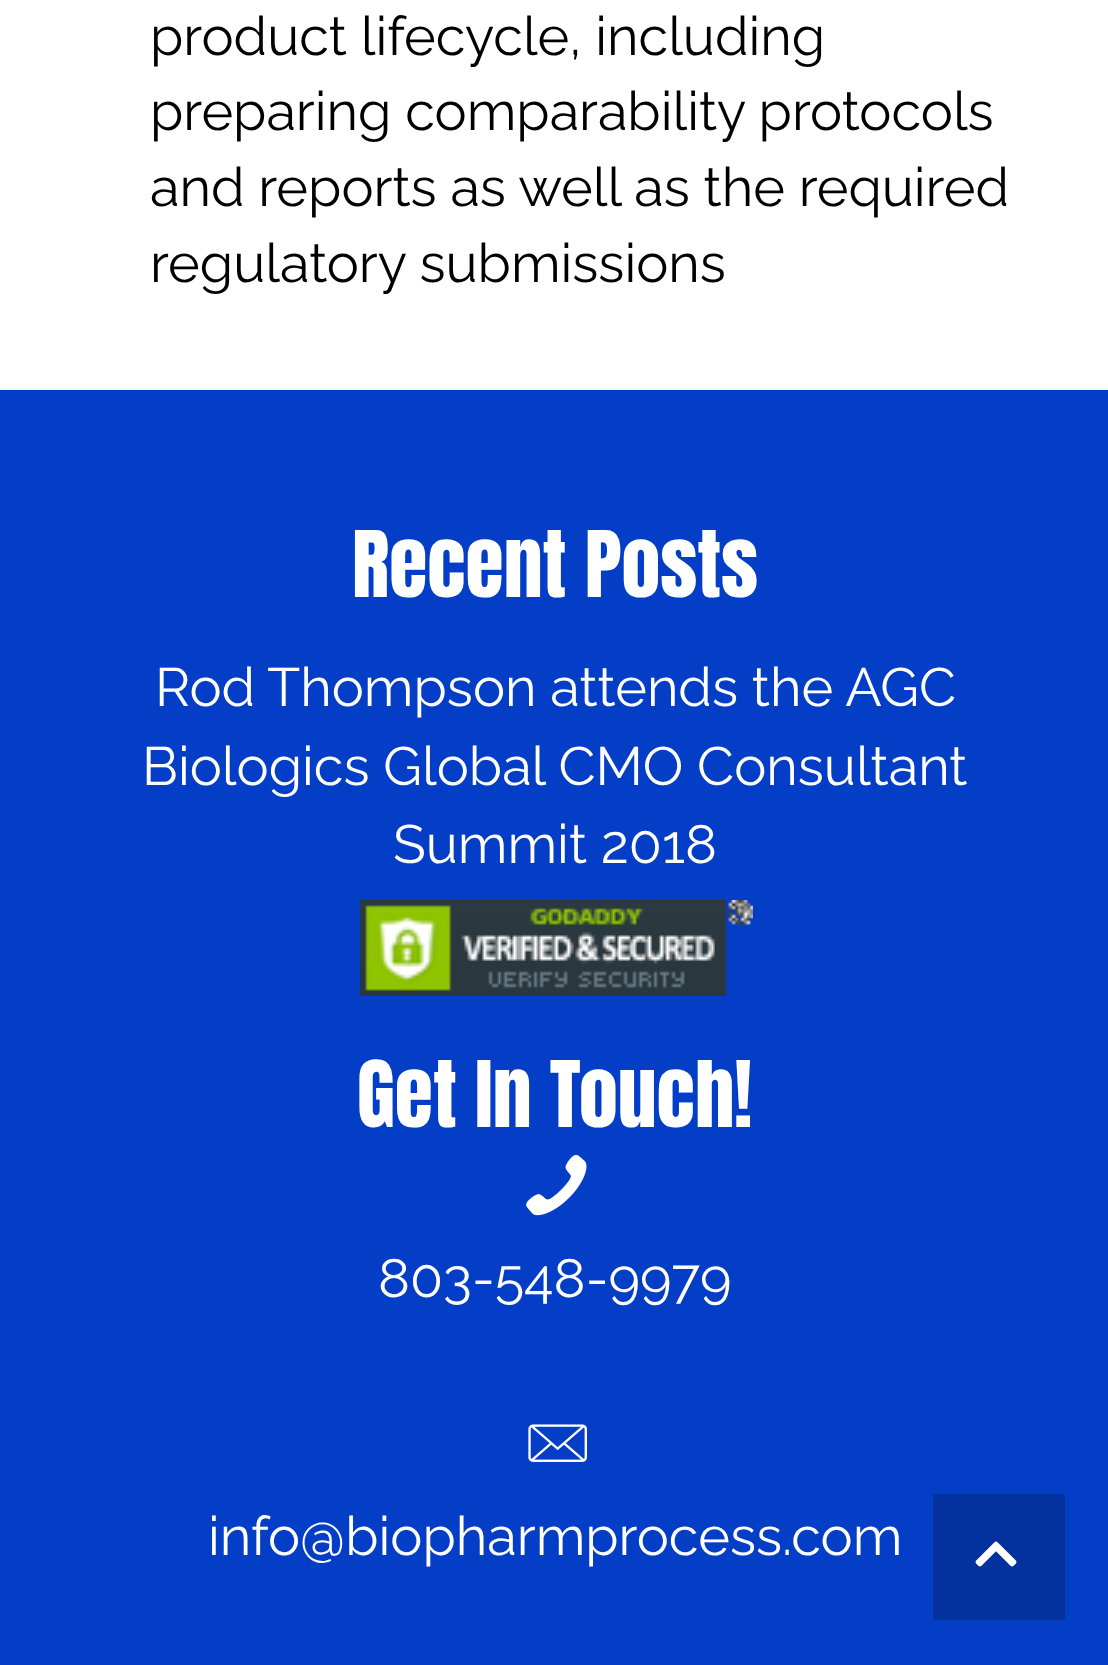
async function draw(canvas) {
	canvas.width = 1108;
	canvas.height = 1665;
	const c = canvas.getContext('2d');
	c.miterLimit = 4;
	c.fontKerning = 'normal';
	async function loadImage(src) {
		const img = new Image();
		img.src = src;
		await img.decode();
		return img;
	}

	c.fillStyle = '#fff';
	c.fillRect(0, 0, 1108, 1665);
	c.font = '100 54px Raleway';
	c.fillStyle = '#000';
	for (const [text, x, y] of [
		['product lifecycle, including', 150, 55],
		['preparing comparability protocols', 150, 130],
		['and reports as well as the required', 150, 206],
		['regulatory submissions', 150, 282],
	]) {
		c.fillText(text, x, y);
	}
	c.fillStyle = '#043ec6';
	c.fillRect(0, 390, 1108, 1275);
	c.font = '78px Anton';
	c.fillStyle = '#fff';
	c.fillText('Recent Posts', 352, 597);
	c.font = '100 54px Raleway';
	for (const [text, x, y] of [
		['Rod Thompson attends the AGC', 155, 706],
		['Biologics Global CMO Consultant', 142, 785],
		['Summit 2018', 393, 863],
	]) {
		c.fillText(text, x, y);
	}
	c.drawImage(await loadImage('img1.png'), 360, 900, 393, 96);
	c.font = '78px Anton';
	c.fillText('Get In Touch!', 357, 1127);
	c.drawImage(await loadImage('img2.png'), 526, 1154, 61, 62);
	c.font = '100 54px Raleway';
	c.fillText('803-548-9979', 378, 1297);
	c.drawImage(await loadImage('img3.png'), 528, 1424, 59, 38);
	c.fillText('info@biopharmprocess.com', 208, 1555);
	c.fillStyle = '#03329e';
	c.fillRect(933, 1494, 132, 126);
	c.drawImage(await loadImage('img4.png'), 975, 1541, 42, 26);
}

draw(document.querySelector('canvas'));
